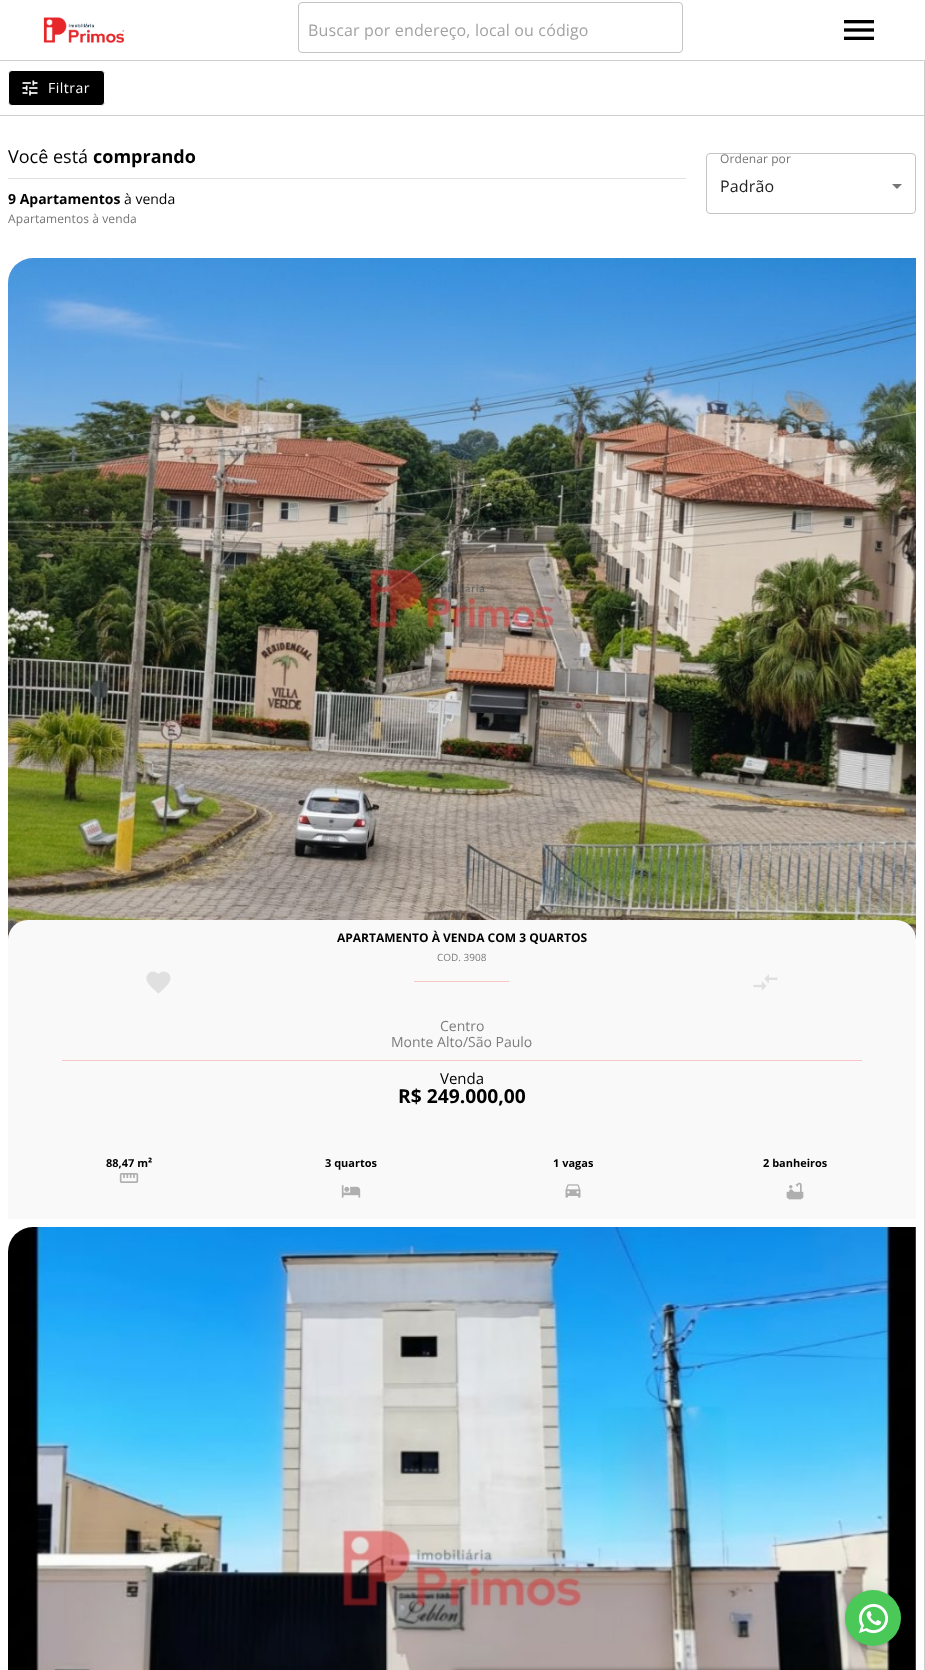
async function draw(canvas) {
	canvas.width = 925;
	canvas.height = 1670;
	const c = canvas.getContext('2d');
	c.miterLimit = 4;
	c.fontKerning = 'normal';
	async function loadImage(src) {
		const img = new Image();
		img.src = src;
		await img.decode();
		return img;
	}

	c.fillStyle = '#fff';
	c.fillRect(0, 0, 925, 1670);
	c.drawImage(await loadImage('img1.png'), 43, 17, 81, 26);
	c.beginPath();
	c.roundRect(298.5, 2.5, 384, 50, 3.5);
	c.strokeStyle = '#c4c4c4';
	c.stroke();
	c.letterSpacing = '0.15px';
	c.font = '16px Open Sans';
	c.fillStyle = '#a2a2a2';
	c.fillText('Buscar por endereço, local ou código', 308, 36);
	c.drawImage(await loadImage('img2.png'), 844, 20, 30, 20);
	for (const [x, y, w, h, color] of [
		[0, 60, 925, 1, '#cecece'],
		[924, 61, 1, 1609, '#cecece'],
		[0, 115, 924, 1, '#cecece'],
	]) {
		c.fillStyle = color;
		c.fillRect(x, y, w, h);
	}
	c.fillStyle = '#000';
	c.beginPath();
	c.roundRect(8.5, 70.5, 96, 35, 3.5);
	c.fill();
	c.strokeStyle = '#fff';
	c.stroke();
	c.drawImage(await loadImage('img3.png'), 22, 80, 16, 16);
	c.letterSpacing = '0.5px';
	c.font = '14px Open Sans';
	c.fillStyle = '#fff';
	c.fillText('Filtrar', 48, 93);
	c.letterSpacing = '0px';
	c.font = '18px Open Sans';
	c.fillStyle = '#000';
	c.fillText('Você está', 8, 163);
	c.font = 'bold 18px Open Sans';
	c.fillText('comprando', 93, 163);
	c.fillStyle = '#e0e0e0';
	c.fillRect(8, 178, 678, 1);
	c.font = 'bold 14px Open Sans';
	c.fillStyle = '#000';
	c.fillText('9 Apartamentos', 8, 204);
	c.font = '14px Open Sans';
	c.fillText('à venda', 124, 204);
	c.letterSpacing = '0.1px';
	c.font = '12px Open Sans';
	c.fillStyle = '#757575';
	c.fillText('Apartamentos à venda', 8, 223);
	c.beginPath();
	c.moveTo(892, 184);
	c.lineTo(897, 189);
	c.lineTo(902, 184);
	c.closePath();
	c.fill();
	c.beginPath();
	c.roundRect(706.5, 153.5, 209, 60, 3.5);
	c.strokeStyle = '#c4c4c4';
	c.stroke();
	c.fillText('Ordenar por', 720, 163);
	c.letterSpacing = '0.15px';
	c.font = '16px Open Sans';
	c.fillStyle = '#212121';
	c.fillText('Padrão', 720, 192);
	c.fillStyle = '#d7d7d7';
	c.beginPath();
	c.roundRect(8, 258, 908, 682, [25, 0, 0, 0]);
	c.fill();
	c.drawImage(await loadImage('img4.png'), 8, 258, 908, 681);
	c.fillStyle = '#f9f9f9';
	c.beginPath();
	c.roundRect(8, 920, 908, 299, [20, 20, 0, 0]);
	c.fill();
	c.letterSpacing = '0px';
	c.font = 'bold 12px Open Sans';
	c.fillStyle = '#000';
	c.fillText('APARTAMENTO À VENDA COM 3 QUARTOS', 337, 942);
	c.font = '10px Open Sans';
	c.fillStyle = '#7d7d7d';
	c.fillText('COD. 3908', 437, 961);
	c.drawImage(await loadImage('img5.png'), 146, 971, 25, 23);
	c.fillStyle = '#fac7c7';
	c.fillRect(414, 981, 95, 1);
	c.drawImage(await loadImage('img6.png'), 753, 974, 25, 17);
	c.font = '14px Open Sans';
	c.fillStyle = '#7d7d7d';
	c.fillText('Centro', 440, 1031);
	c.fillText('Monte Alto/São Paulo', 391, 1047);
	c.fillStyle = '#fac7c7';
	c.fillRect(62, 1060, 800, 1);
	c.font = '15px Open Sans';
	c.fillStyle = '#000';
	c.fillText('Venda', 440, 1084);
	c.font = 'bold 19.25px Open Sans';
	c.fillText('R$ 249.000,00', 398, 1103);
	c.font = 'bold 11px Open Sans';
	c.fillText('88,47 m²', 106, 1167);
	c.drawImage(await loadImage('img7.png'), 119, 1173, 20, 10);
	c.fillText('3 quartos', 325, 1167);
	c.drawImage(await loadImage('img8.png'), 341, 1185, 20, 13);
	c.fillText('1 vagas', 553, 1167);
	c.drawImage(await loadImage('img9.png'), 565, 1184, 16, 14);
	c.fillText('2 banheiros', 763, 1167);
	c.drawImage(await loadImage('img10.png'), 786, 1182, 18, 18);
	c.fillStyle = '#d7d7d7';
	c.beginPath();
	c.roundRect(8, 1227, 908, 443, [25, 0, 0, 0]);
	c.fill();
	c.drawImage(await loadImage('img11.png'), 8, 1227, 908, 443);
	c.fillStyle = '#0000001f';
	c.filter = 'blur(9px)';
	c.beginPath();
	c.roundRect(845, 1591, 56, 56, 28);
	c.fill();
	c.filter = 'none';
	c.fillStyle = '#00000024';
	c.filter = 'blur(5px)';
	c.beginPath();
	c.roundRect(845, 1596, 56, 56, 28);
	c.fill();
	c.filter = 'none';
	c.fillStyle = '#00000033';
	c.filter = 'blur(2.5px)';
	c.beginPath();
	c.roundRect(846, 1594, 54, 54, 27);
	c.fill();
	c.filter = 'none';
	c.fillStyle = '#4ac959';
	c.beginPath();
	c.arc(873, 1618, 28, 0, 2 * Math.PI);
	c.fill();
	c.drawImage(await loadImage('img12.png'), 858, 1603, 31, 31);
	c.fillStyle = '#00000066';
	c.filter = 'blur(2px)';
	c.beginPath();
	c.roundRect(452, 1670, 450, 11, 5);
	c.fill();
	c.filter = 'none';
}

draw(document.querySelector('canvas'));
